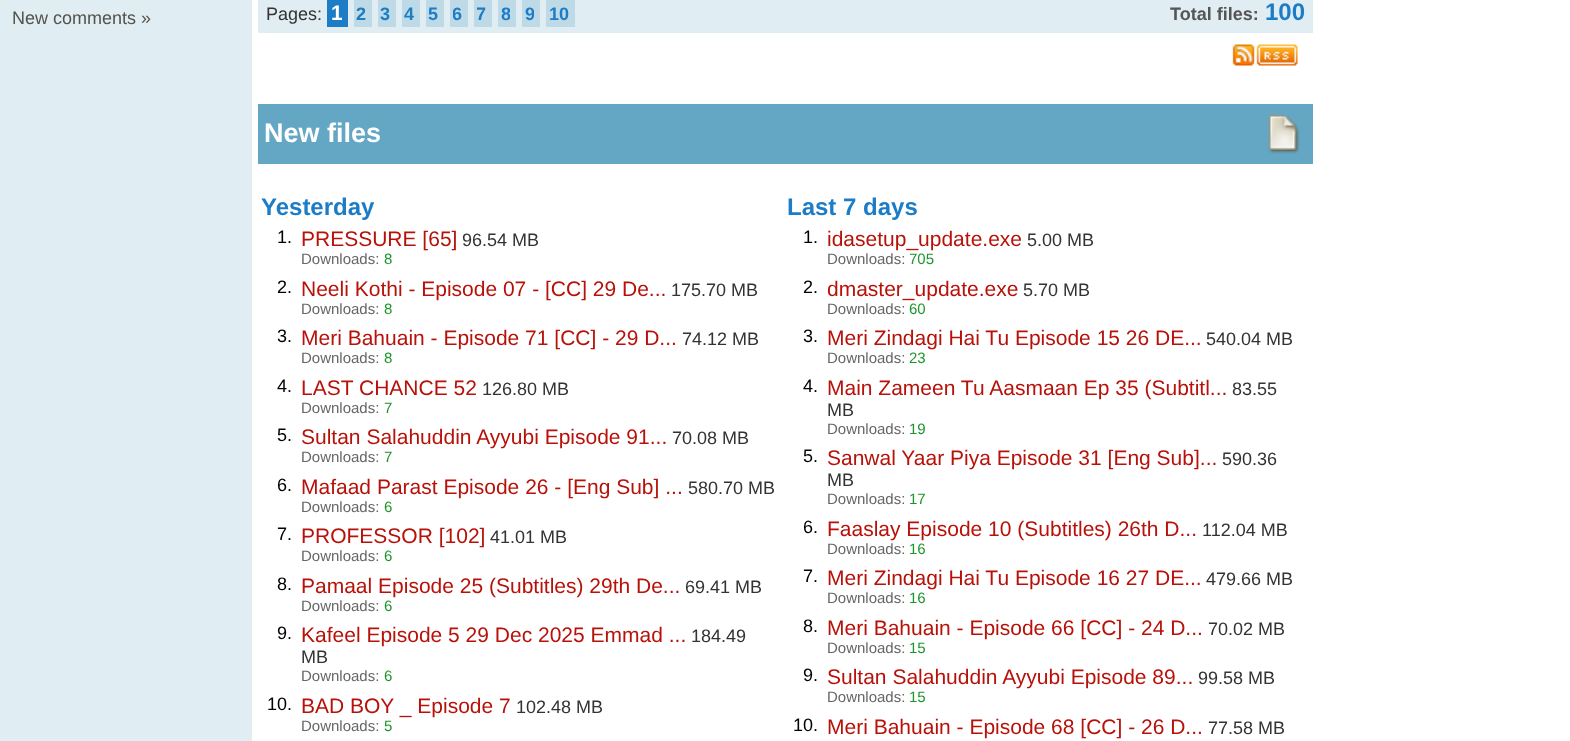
async function draw(canvas) {
	canvas.width = 1570;
	canvas.height = 741;
	const c = canvas.getContext('2d');
	c.miterLimit = 4;
	c.fontKerning = 'normal';
	async function loadImage(src) {
		const img = new Image();
		img.src = src;
		await img.decode();
		return img;
	}

	c.fillStyle = '#fff';
	c.fillRect(0, 0, 1570, 741);
	c.fillStyle = '#e0edf3';
	c.fillRect(0, 0, 252, 741);
	c.font = '18px Liberation Sans';
	c.fillStyle = '#54534b';
	c.fillText('New comments »', 12, 24);
	c.fillStyle = '#e0edf3';
	c.fillRect(258, 0, 1055, 33);
	c.fillStyle = '#333';
	c.fillText('Pages:', 266, 20);
	c.fillStyle = '#1c7dc6';
	c.fillRect(330, 0, 12, 24);
	c.font = 'bold 21px Liberation Sans';
	c.fillStyle = '#fff';
	c.fillText('1', 331, 20);
	for (const [x, y, w, h, color] of [
		[342, 0, 6, 27, '#1c7dc6'],
		[327, 24, 21, 3, '#1c7dc6'],
		[327, 0, 3, 27, '#1c7dc6'],
		[357, 3, 9, 21, '#bedae7'],
		[354, 0, 18, 3, '#bedae7'],
		[366, 0, 6, 27, '#bedae7'],
		[354, 24, 18, 3, '#bedae7'],
		[354, 0, 3, 27, '#bedae7'],
	]) {
		c.fillStyle = color;
		c.fillRect(x, y, w, h);
	}
	c.font = 'bold 18px Liberation Sans';
	c.fillStyle = '#1c7dc6';
	c.fillText('2', 356, 20);
	for (const [x, y, w, h, color] of [
		[381, 3, 9, 21, '#bedae7'],
		[378, 0, 18, 3, '#bedae7'],
		[390, 0, 6, 27, '#bedae7'],
		[378, 24, 18, 3, '#bedae7'],
		[378, 0, 3, 27, '#bedae7'],
	]) {
		c.fillStyle = color;
		c.fillRect(x, y, w, h);
	}
	c.fillStyle = '#1c7dc6';
	c.fillText('3', 380, 20);
	for (const [x, y, w, h, color] of [
		[405, 3, 9, 21, '#bedae7'],
		[402, 0, 18, 3, '#bedae7'],
		[414, 0, 6, 27, '#bedae7'],
		[402, 24, 18, 3, '#bedae7'],
		[402, 0, 3, 27, '#bedae7'],
	]) {
		c.fillStyle = color;
		c.fillRect(x, y, w, h);
	}
	c.fillStyle = '#1c7dc6';
	c.fillText('4', 404, 20);
	for (const [x, y, w, h, color] of [
		[429, 3, 9, 21, '#bedae7'],
		[426, 0, 18, 3, '#bedae7'],
		[438, 0, 6, 27, '#bedae7'],
		[426, 24, 18, 3, '#bedae7'],
		[426, 0, 3, 27, '#bedae7'],
	]) {
		c.fillStyle = color;
		c.fillRect(x, y, w, h);
	}
	c.fillStyle = '#1c7dc6';
	c.fillText('5', 428, 20);
	c.fillStyle = '#bedae7';
	c.fillRect(453, 3, 9, 21);
	c.fillStyle = '#1c7dc6';
	c.fillText('6', 452, 20);
	for (const [x, y, w, h, color] of [
		[450, 0, 18, 3, '#bedae7'],
		[462, 0, 6, 27, '#bedae7'],
		[450, 24, 18, 3, '#bedae7'],
		[450, 0, 3, 27, '#bedae7'],
		[477, 3, 9, 21, '#bedae7'],
	]) {
		c.fillStyle = color;
		c.fillRect(x, y, w, h);
	}
	c.fillStyle = '#1c7dc6';
	c.fillText('7', 476, 20);
	for (const [x, y, w, h, color] of [
		[474, 0, 18, 3, '#bedae7'],
		[486, 0, 6, 27, '#bedae7'],
		[474, 24, 18, 3, '#bedae7'],
		[474, 0, 3, 27, '#bedae7'],
		[501, 3, 9, 21, '#bedae7'],
	]) {
		c.fillStyle = color;
		c.fillRect(x, y, w, h);
	}
	c.fillStyle = '#1c7dc6';
	c.fillText('8', 501, 20);
	for (const [x, y, w, h, color] of [
		[498, 0, 18, 3, '#bedae7'],
		[510, 0, 6, 27, '#bedae7'],
		[498, 24, 18, 3, '#bedae7'],
		[498, 0, 3, 27, '#bedae7'],
		[525, 3, 9, 21, '#bedae7'],
	]) {
		c.fillStyle = color;
		c.fillRect(x, y, w, h);
	}
	c.fillStyle = '#1c7dc6';
	c.fillText('9', 525, 20);
	for (const [x, y, w, h, color] of [
		[522, 0, 18, 3, '#bedae7'],
		[534, 0, 6, 27, '#bedae7'],
		[522, 24, 18, 3, '#bedae7'],
		[522, 0, 3, 27, '#bedae7'],
		[549, 3, 20, 21, '#bedae7'],
	]) {
		c.fillStyle = color;
		c.fillRect(x, y, w, h);
	}
	c.fillStyle = '#1c7dc6';
	c.fillText('10', 549, 20);
	for (const [x, y, w, h, color] of [
		[546, 0, 29, 3, '#bedae7'],
		[569, 0, 6, 27, '#bedae7'],
		[546, 24, 29, 3, '#bedae7'],
		[546, 0, 3, 27, '#bedae7'],
	]) {
		c.fillStyle = color;
		c.fillRect(x, y, w, h);
	}
	c.fillStyle = '#555';
	c.fillText('Total files:', 1170, 20);
	c.font = 'bold 24px Liberation Sans';
	c.fillStyle = '#1c7dc6';
	c.fillText('100', 1265, 20);
	c.drawImage(await loadImage('img1.png'), 1232, 44, 66, 22);
	c.fillStyle = '#64a7c4';
	c.fillRect(258, 104, 1055, 60);
	c.font = 'bold 27px Liberation Sans';
	c.fillStyle = '#fff';
	c.fillText('New files', 264, 142);
	c.drawImage(await loadImage('img2.png'), 1268, 114, 32, 40);
	c.font = 'bold 24px Liberation Sans';
	c.fillStyle = '#1c7dc6';
	c.fillText('Yesterday', 261, 215);
	c.font = '18px Liberation Sans';
	c.fillStyle = '#000';
	c.fillText('1.', 277, 243);
	c.font = '21px Liberation Sans';
	c.fillStyle = '#b71109';
	c.fillText('PRESSURE [65]', 301, 246);
	c.font = '18px Liberation Sans';
	c.fillStyle = '#333';
	c.fillText('96.54 MB', 462, 246);
	c.font = '15px Liberation Sans';
	c.fillStyle = '#666';
	c.fillText('Downloads:', 301, 264);
	c.fillStyle = '#1c952b';
	c.fillText('8', 384, 264);
	c.font = '18px Liberation Sans';
	c.fillStyle = '#000';
	c.fillText('2.', 277, 293);
	c.font = '21px Liberation Sans';
	c.fillStyle = '#b71109';
	c.fillText('Neeli Kothi - Episode 07 - [CC] 29 De...', 301, 296);
	c.font = '18px Liberation Sans';
	c.fillStyle = '#333';
	c.fillText('175.70 MB', 671, 296);
	c.font = '15px Liberation Sans';
	c.fillStyle = '#666';
	c.fillText('Downloads:', 301, 314);
	c.fillStyle = '#1c952b';
	c.fillText('8', 384, 314);
	c.font = '18px Liberation Sans';
	c.fillStyle = '#000';
	c.fillText('3.', 277, 342);
	c.font = '21px Liberation Sans';
	c.fillStyle = '#b71109';
	c.fillText('Meri Bahuain - Episode 71 [CC] - 29 D...', 301, 345);
	c.font = '18px Liberation Sans';
	c.fillStyle = '#333';
	c.fillText('74.12 MB', 682, 345);
	c.font = '15px Liberation Sans';
	c.fillStyle = '#666';
	c.fillText('Downloads:', 301, 363);
	c.fillStyle = '#1c952b';
	c.fillText('8', 384, 363);
	c.font = '18px Liberation Sans';
	c.fillStyle = '#000';
	c.fillText('4.', 277, 392);
	c.font = '21px Liberation Sans';
	c.fillStyle = '#b71109';
	c.fillText('LAST CHANCE 52', 301, 395);
	c.font = '18px Liberation Sans';
	c.fillStyle = '#333';
	c.fillText('126.80 MB', 482, 395);
	c.font = '15px Liberation Sans';
	c.fillStyle = '#666';
	c.fillText('Downloads:', 301, 413);
	c.fillStyle = '#1c952b';
	c.fillText('7', 384, 413);
	c.font = '18px Liberation Sans';
	c.fillStyle = '#000';
	c.fillText('5.', 277, 441);
	c.font = '21px Liberation Sans';
	c.fillStyle = '#b71109';
	c.fillText('Sultan Salahuddin Ayyubi Episode 91...', 301, 444);
	c.font = '18px Liberation Sans';
	c.fillStyle = '#333';
	c.fillText('70.08 MB', 672, 444);
	c.font = '15px Liberation Sans';
	c.fillStyle = '#666';
	c.fillText('Downloads:', 301, 462);
	c.fillStyle = '#1c952b';
	c.fillText('7', 384, 462);
	c.font = '18px Liberation Sans';
	c.fillStyle = '#000';
	c.fillText('6.', 277, 491);
	c.font = '21px Liberation Sans';
	c.fillStyle = '#b71109';
	c.fillText('Mafaad Parast Episode 26 - [Eng Sub] ...', 301, 494);
	c.font = '18px Liberation Sans';
	c.fillStyle = '#333';
	c.fillText('580.70 MB', 688, 494);
	c.font = '15px Liberation Sans';
	c.fillStyle = '#666';
	c.fillText('Downloads:', 301, 512);
	c.fillStyle = '#1c952b';
	c.fillText('6', 384, 512);
	c.font = '18px Liberation Sans';
	c.fillStyle = '#000';
	c.fillText('7.', 277, 540);
	c.font = '21px Liberation Sans';
	c.fillStyle = '#b71109';
	c.fillText('PROFESSOR [102]', 301, 543);
	c.font = '18px Liberation Sans';
	c.fillStyle = '#333';
	c.fillText('41.01 MB', 490, 543);
	c.font = '15px Liberation Sans';
	c.fillStyle = '#666';
	c.fillText('Downloads:', 301, 561);
	c.fillStyle = '#1c952b';
	c.fillText('6', 384, 561);
	c.font = '18px Liberation Sans';
	c.fillStyle = '#000';
	c.fillText('8.', 277, 590);
	c.font = '21px Liberation Sans';
	c.fillStyle = '#b71109';
	c.fillText('Pamaal Episode 25 (Subtitles) 29th De...', 301, 593);
	c.font = '18px Liberation Sans';
	c.fillStyle = '#333';
	c.fillText('69.41 MB', 685, 593);
	c.font = '15px Liberation Sans';
	c.fillStyle = '#666';
	c.fillText('Downloads:', 301, 611);
	c.fillStyle = '#1c952b';
	c.fillText('6', 384, 611);
	c.font = '18px Liberation Sans';
	c.fillStyle = '#000';
	c.fillText('9.', 277, 639);
	c.font = '21px Liberation Sans';
	c.fillStyle = '#b71109';
	c.fillText('Kafeel Episode 5 29 Dec 2025 Emmad ...', 301, 642);
	c.font = '18px Liberation Sans';
	c.fillStyle = '#333';
	c.fillText('184.49', 691, 642);
	c.fillText('MB', 301, 663);
	c.font = '15px Liberation Sans';
	c.fillStyle = '#666';
	c.fillText('Downloads:', 301, 681);
	c.fillStyle = '#1c952b';
	c.fillText('6', 384, 681);
	c.font = '18px Liberation Sans';
	c.fillStyle = '#000';
	c.fillText('10.', 267, 710);
	c.font = '21px Liberation Sans';
	c.fillStyle = '#b71109';
	c.fillText('BAD BOY _ Episode 7', 301, 713);
	c.font = '18px Liberation Sans';
	c.fillStyle = '#333';
	c.fillText('102.48 MB', 516, 713);
	c.font = '15px Liberation Sans';
	c.fillStyle = '#666';
	c.fillText('Downloads:', 301, 731);
	c.fillStyle = '#1c952b';
	c.fillText('5', 384, 731);
	c.font = 'bold 24px Liberation Sans';
	c.fillStyle = '#1c7dc6';
	c.fillText('Last 7 days', 787, 215);
	c.font = '18px Liberation Sans';
	c.fillStyle = '#000';
	c.fillText('1.', 803, 243);
	c.font = '21px Liberation Sans';
	c.fillStyle = '#b71109';
	c.fillText('idasetup_update.exe', 827, 246);
	c.font = '18px Liberation Sans';
	c.fillStyle = '#333';
	c.fillText('5.00 MB', 1027, 246);
	c.font = '15px Liberation Sans';
	c.fillStyle = '#666';
	c.fillText('Downloads:', 827, 264);
	c.fillStyle = '#1c952b';
	c.fillText('705', 909, 264);
	c.font = '18px Liberation Sans';
	c.fillStyle = '#000';
	c.fillText('2.', 803, 293);
	c.font = '21px Liberation Sans';
	c.fillStyle = '#b71109';
	c.fillText('dmaster_update.exe', 827, 296);
	c.font = '18px Liberation Sans';
	c.fillStyle = '#333';
	c.fillText('5.70 MB', 1023, 296);
	c.font = '15px Liberation Sans';
	c.fillStyle = '#666';
	c.fillText('Downloads:', 827, 314);
	c.fillStyle = '#1c952b';
	c.fillText('60', 909, 314);
	c.font = '18px Liberation Sans';
	c.fillStyle = '#000';
	c.fillText('3.', 803, 342);
	c.font = '21px Liberation Sans';
	c.fillStyle = '#b71109';
	c.fillText('Meri Zindagi Hai Tu Episode 15 26 DE...', 827, 345);
	c.font = '18px Liberation Sans';
	c.fillStyle = '#333';
	c.fillText('540.04 MB', 1206, 345);
	c.font = '15px Liberation Sans';
	c.fillStyle = '#666';
	c.fillText('Downloads:', 827, 363);
	c.fillStyle = '#1c952b';
	c.fillText('23', 909, 363);
	c.font = '18px Liberation Sans';
	c.fillStyle = '#000';
	c.fillText('4.', 803, 392);
	c.font = '21px Liberation Sans';
	c.fillStyle = '#b71109';
	c.fillText('Main Zameen Tu Aasmaan Ep 35 (Subtitl...', 827, 395);
	c.font = '18px Liberation Sans';
	c.fillStyle = '#333';
	c.fillText('83.55', 1232, 395);
	c.fillText('MB', 827, 416);
	c.font = '15px Liberation Sans';
	c.fillStyle = '#666';
	c.fillText('Downloads:', 827, 434);
	c.fillStyle = '#1c952b';
	c.fillText('19', 909, 434);
	c.font = '18px Liberation Sans';
	c.fillStyle = '#000';
	c.fillText('5.', 803, 462);
	c.font = '21px Liberation Sans';
	c.fillStyle = '#b71109';
	c.fillText('Sanwal Yaar Piya Episode 31 [Eng Sub]...', 827, 465);
	c.font = '18px Liberation Sans';
	c.fillStyle = '#333';
	c.fillText('590.36', 1222, 465);
	c.fillText('MB', 827, 486);
	c.font = '15px Liberation Sans';
	c.fillStyle = '#666';
	c.fillText('Downloads:', 827, 504);
	c.fillStyle = '#1c952b';
	c.fillText('17', 909, 504);
	c.font = '18px Liberation Sans';
	c.fillStyle = '#000';
	c.fillText('6.', 803, 533);
	c.font = '21px Liberation Sans';
	c.fillStyle = '#b71109';
	c.fillText('Faaslay Episode 10 (Subtitles) 26th D...', 827, 536);
	c.font = '18px Liberation Sans';
	c.fillStyle = '#333';
	c.fillText('112.04 MB', 1202, 536);
	c.font = '15px Liberation Sans';
	c.fillStyle = '#666';
	c.fillText('Downloads:', 827, 554);
	c.fillStyle = '#1c952b';
	c.fillText('16', 909, 554);
	c.font = '18px Liberation Sans';
	c.fillStyle = '#000';
	c.fillText('7.', 803, 582);
	c.font = '21px Liberation Sans';
	c.fillStyle = '#b71109';
	c.fillText('Meri Zindagi Hai Tu Episode 16 27 DE...', 827, 585);
	c.font = '18px Liberation Sans';
	c.fillStyle = '#333';
	c.fillText('479.66 MB', 1206, 585);
	c.font = '15px Liberation Sans';
	c.fillStyle = '#666';
	c.fillText('Downloads:', 827, 603);
	c.fillStyle = '#1c952b';
	c.fillText('16', 909, 603);
	c.font = '18px Liberation Sans';
	c.fillStyle = '#000';
	c.fillText('8.', 803, 632);
	c.font = '21px Liberation Sans';
	c.fillStyle = '#b71109';
	c.fillText('Meri Bahuain - Episode 66 [CC] - 24 D...', 827, 635);
	c.font = '18px Liberation Sans';
	c.fillStyle = '#333';
	c.fillText('70.02 MB', 1208, 635);
	c.font = '15px Liberation Sans';
	c.fillStyle = '#666';
	c.fillText('Downloads:', 827, 653);
	c.fillStyle = '#1c952b';
	c.fillText('15', 909, 653);
	c.font = '18px Liberation Sans';
	c.fillStyle = '#000';
	c.fillText('9.', 803, 681);
	c.font = '21px Liberation Sans';
	c.fillStyle = '#b71109';
	c.fillText('Sultan Salahuddin Ayyubi Episode 89...', 827, 684);
	c.font = '18px Liberation Sans';
	c.fillStyle = '#333';
	c.fillText('99.58 MB', 1198, 684);
	c.font = '15px Liberation Sans';
	c.fillStyle = '#666';
	c.fillText('Downloads:', 827, 702);
	c.fillStyle = '#1c952b';
	c.fillText('15', 909, 702);
	c.font = '18px Liberation Sans';
	c.fillStyle = '#000';
	c.fillText('10.', 793, 731);
	c.font = '21px Liberation Sans';
	c.fillStyle = '#b71109';
	c.fillText('Meri Bahuain - Episode 68 [CC] - 26 D...', 827, 734);
	c.font = '18px Liberation Sans';
	c.fillStyle = '#333';
	c.fillText('77.58 MB', 1208, 734);
}

draw(document.querySelector('canvas'));
